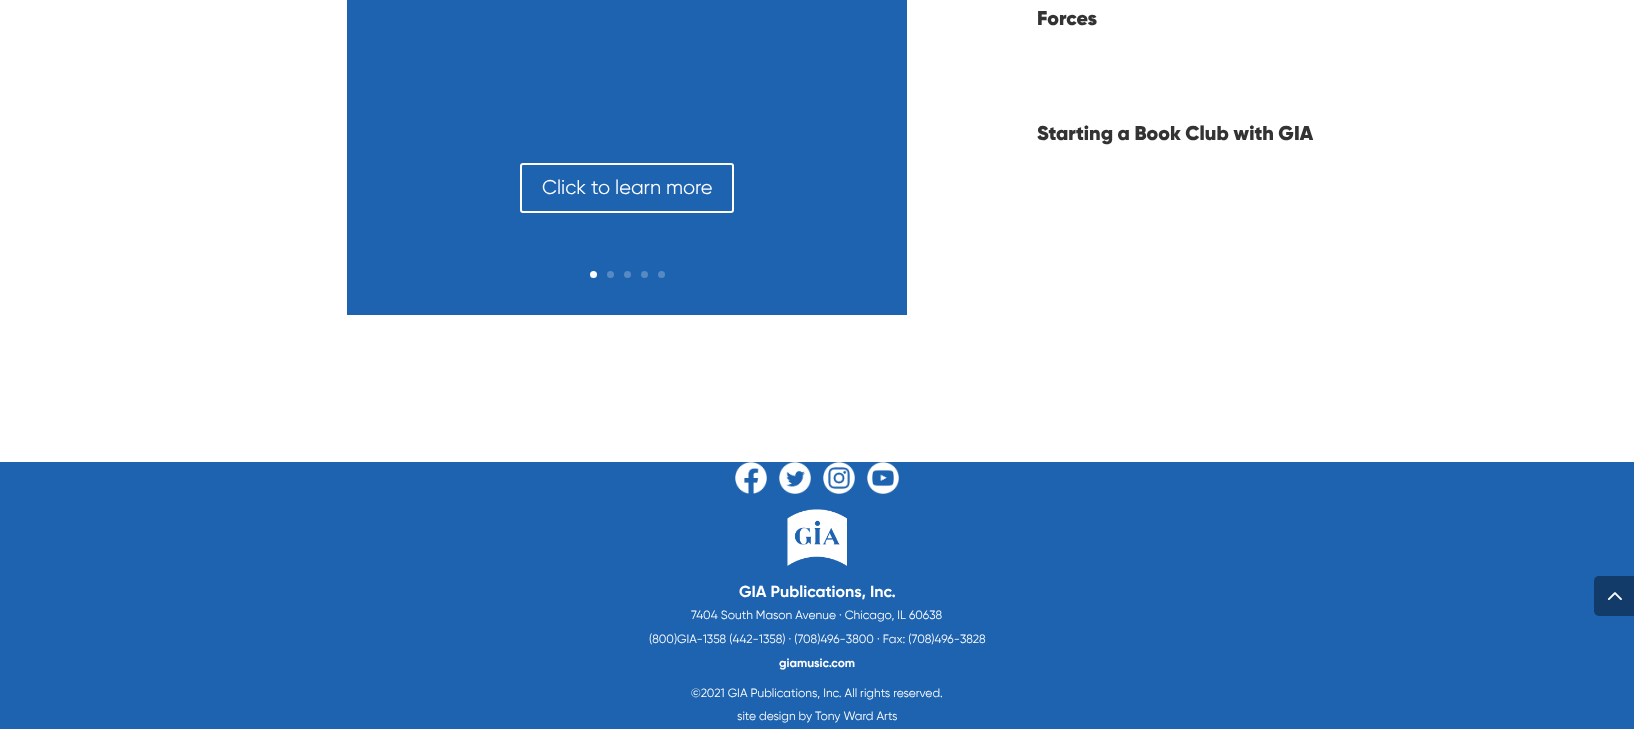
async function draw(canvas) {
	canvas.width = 1634;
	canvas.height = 741;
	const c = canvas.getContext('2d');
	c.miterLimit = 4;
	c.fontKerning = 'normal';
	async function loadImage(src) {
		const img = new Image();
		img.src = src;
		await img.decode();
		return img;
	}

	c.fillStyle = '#fff';
	c.fillRect(0, 0, 1634, 741);
	c.font = '900 20px Gilroy';
	c.fillStyle = '#333';
	c.fillText('Forces', 1037, 25);
	c.fillText('Starting a Book Club with GIA', 1037, 140);
	c.fillStyle = '#1e63af';
	c.fillRect(347, 0, 560, 315);
	c.beginPath();
	c.roundRect(521, 164, 212, 48, 2);
	c.strokeStyle = '#fff';
	c.lineWidth = 2;
	c.stroke();
	c.font = '20px Gilroy';
	c.fillStyle = '#fff';
	c.fillText('Click to learn more', 542, 194);
	c.beginPath();
	c.arc(593.5, 274.5, 3.5, 0, 2 * Math.PI);
	c.fill();
	c.fillStyle = '#578ac3';
	c.beginPath();
	c.arc(610.5, 274.5, 3.5, 0, 2 * Math.PI);
	c.fill();
	c.beginPath();
	c.arc(627.5, 274.5, 3.5, 0, 2 * Math.PI);
	c.fill();
	c.beginPath();
	c.arc(644.5, 274.5, 3.5, 0, 2 * Math.PI);
	c.fill();
	c.beginPath();
	c.arc(661.5, 274.5, 3.5, 0, 2 * Math.PI);
	c.fill();
	c.fillStyle = '#1e63af';
	c.fillRect(0, 462, 1634, 267);
	c.drawImage(await loadImage('img1.png'), 735, 462, 32, 32);
	c.drawImage(await loadImage('img2.png'), 779, 462, 32, 32);
	c.drawImage(await loadImage('img3.png'), 823, 462, 32, 32);
	c.drawImage(await loadImage('img4.png'), 867, 462, 32, 32);
	c.drawImage(await loadImage('img5.png'), 787, 509, 60, 57);
	c.font = 'bold 16px Gilroy';
	c.fillStyle = '#fff';
	c.fillText('GIA Publications, Inc.', 739, 597);
	c.font = '12px Gilroy';
	c.fillText('7404 South Mason Avenue · Chicago, IL 60638', 691, 619);
	c.fillText('(800)GIA-1358 (442-1358) · (708)496-3800 · Fax: (708)496-3828', 649, 643);
	c.font = 'bold 12px Gilroy';
	c.fillText('giamusic.com', 779, 667);
	c.font = '12px Gilroy';
	c.fillText('©2021 GIA Publications, Inc. All rights reserved.', 691, 697);
	c.fillText('site design by Tony Ward Arts', 737, 720);
	c.fillStyle = '#123b69';
	c.beginPath();
	c.roundRect(1594, 576, 40, 40, [5, 0, 0, 5]);
	c.fill();
	c.drawImage(await loadImage('img6.png'), 1607, 592, 15, 9);
}

draw(document.querySelector('canvas'));
